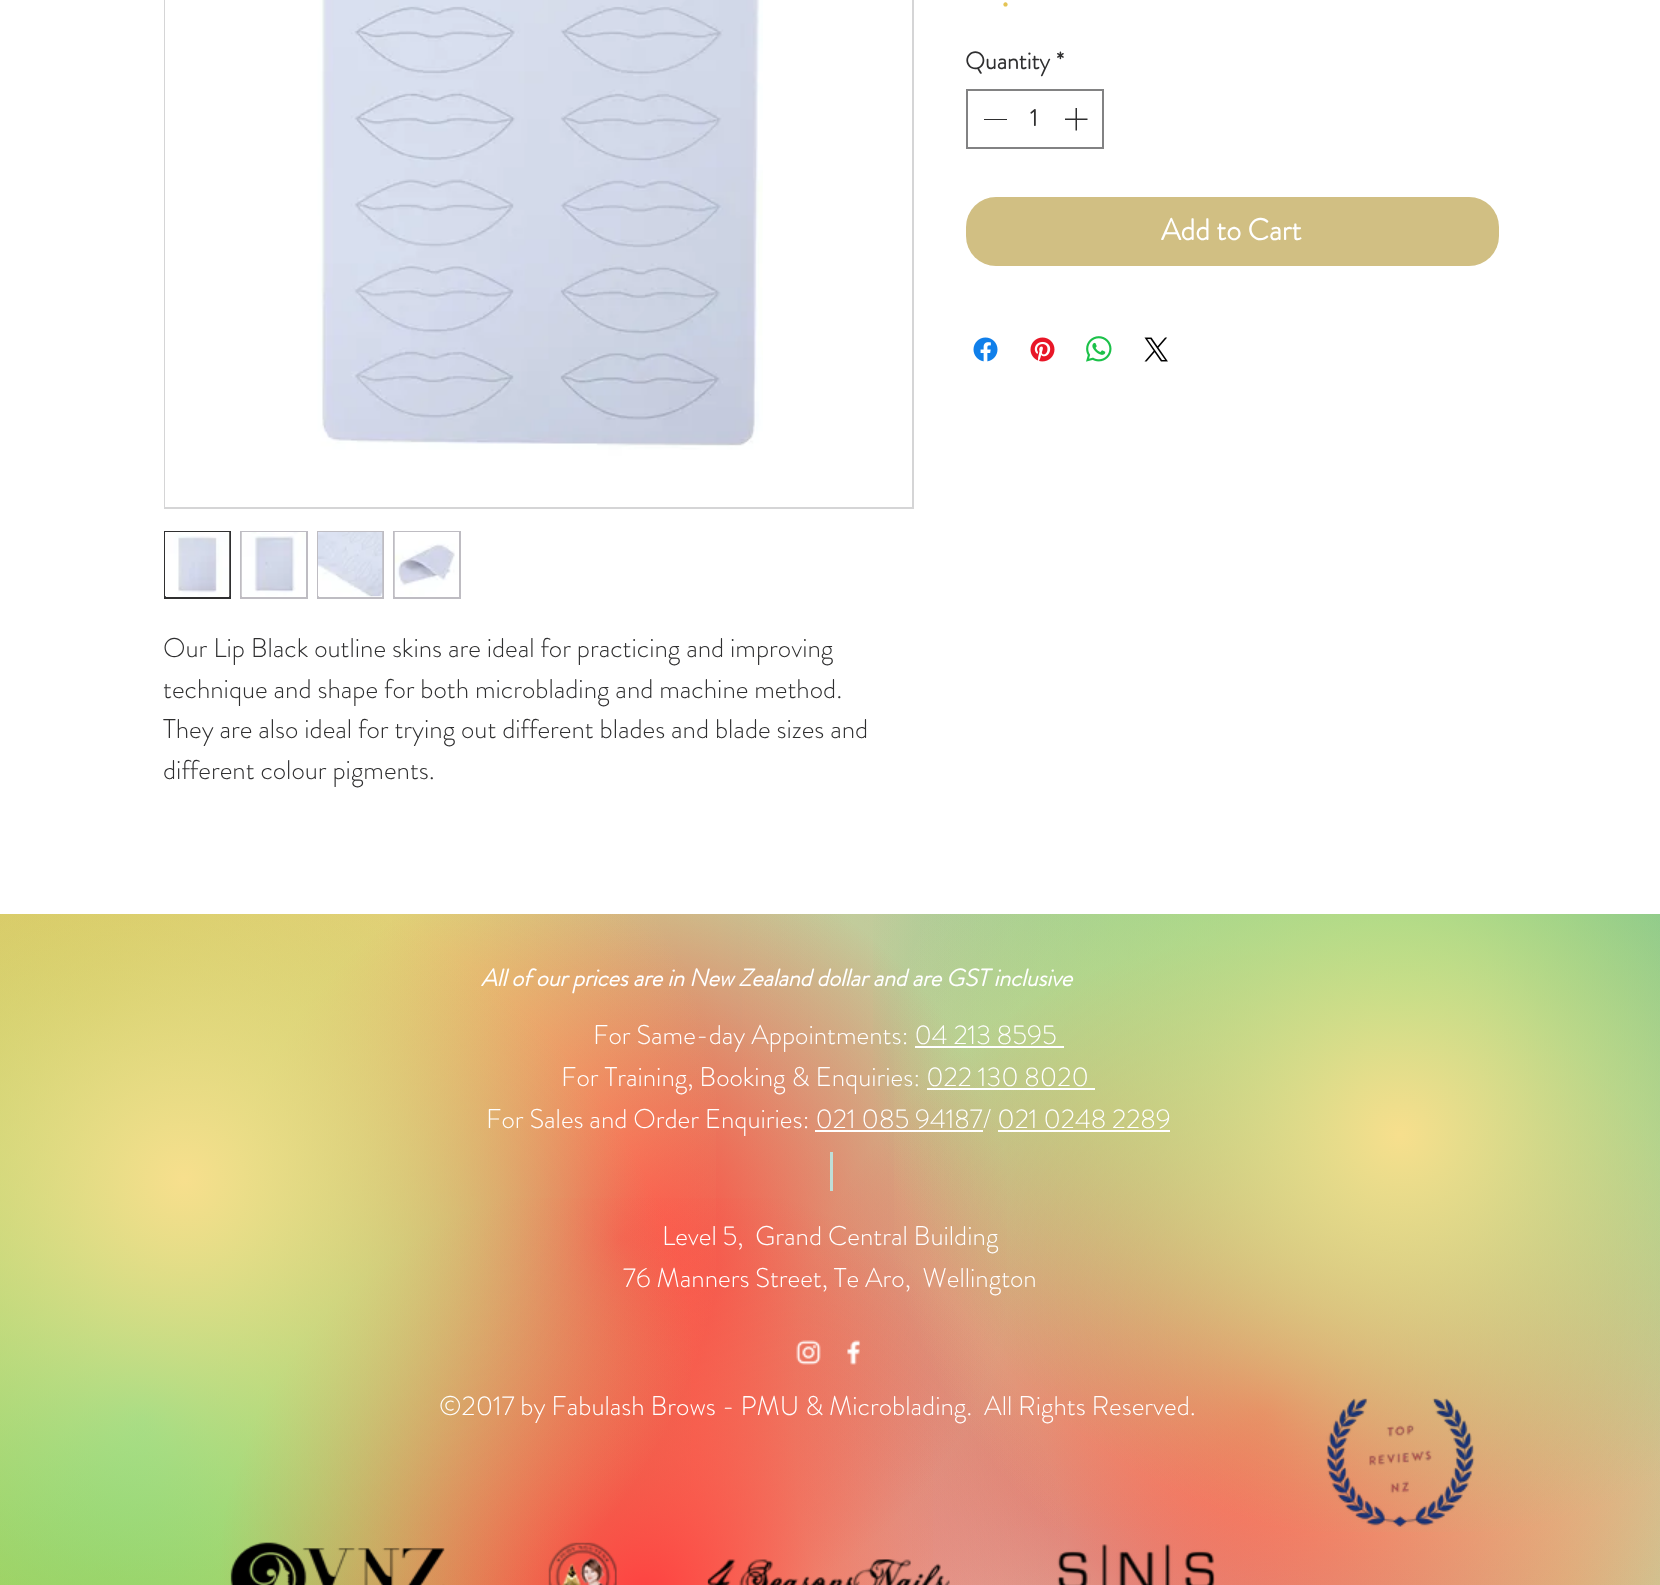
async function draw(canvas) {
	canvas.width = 1660;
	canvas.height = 1585;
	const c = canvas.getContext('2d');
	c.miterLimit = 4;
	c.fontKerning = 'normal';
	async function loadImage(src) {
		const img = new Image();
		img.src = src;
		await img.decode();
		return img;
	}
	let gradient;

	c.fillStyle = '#fff';
	c.fillRect(0, 0, 1660, 1585);
	c.font = '36px Liberation Serif';
	c.fillStyle = '#e4c455';
	c.fillText('.', 1001, 6);
	c.font = 'bold 24px "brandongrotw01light"';
	c.fillStyle = '#2f2f30';
	c.fillText('Quantity', 965, 69);
	c.fillText('*', 1056, 69);
	c.strokeStyle = '#828283';
	c.lineWidth = 2;
	c.strokeRect(967, 90, 136, 58);
	c.fillRect(984, 119, 23, 1);
	c.fillText('1', 1030, 126);
	c.drawImage(await loadImage('img1.png'), 1065, 108, 23, 23);
	c.fillStyle = '#d1bf83';
	c.beginPath();
	c.roundRect(966, 197, 533, 69, 30);
	c.fill();
	c.font = 'bold 30px "brandongrotw01light"';
	c.fillStyle = '#fff';
	c.fillText('Add to Cart', 1161, 240);
	c.drawImage(await loadImage('img2.png'), 973, 337, 25, 25);
	c.drawImage(await loadImage('img3.png'), 1030, 337, 25, 25);
	c.drawImage(await loadImage('img4.png'), 1086, 336, 26, 26);
	c.drawImage(await loadImage('img5.png'), 1144, 337, 24, 25);
	c.strokeStyle = '#d5d5d6';
	c.strokeRect(165, -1, 748, 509);
	c.drawImage(await loadImage('img6.png'), 165, 0, 598, 507);
	c.strokeStyle = '#2f2f30';
	c.strokeRect(165, 532, 65, 66);
	c.drawImage(await loadImage('img7.png'), 165, 532, 65, 65);
	c.strokeStyle = '#bebcc2';
	c.strokeRect(241, 532, 66, 66);
	c.drawImage(await loadImage('img8.png'), 241, 532, 65, 65);
	c.strokeRect(318, 532, 65, 66);
	c.drawImage(await loadImage('img9.png'), 318, 532, 65, 65);
	c.strokeRect(394, 532, 66, 66);
	c.drawImage(await loadImage('img10.png'), 394, 532, 65, 65);
	c.font = '300 27px "brandongrotw01light"';
	c.fillStyle = '#2f2f30';
	for (const [text, x, y] of [
		['Our Lip Black outline skins are ideal for practicing and improving', 163, 657],
		['technique and shape for both microblading and machine method.', 163, 698],
		['They are also ideal for trying out different blades and blade sizes and', 163, 738],
		['different colour pigments.', 163, 779],
	]) {
		c.fillText(text, x, y);
	}
	gradient = c.createRadialGradient(1556, 999, 0, 1556, 999, 1692);
	gradient.addColorStop(0, '#599b8d');
	gradient.addColorStop(0.7, '#fff');
	c.fillStyle = gradient;
	c.fillRect(392, 914, 1268, 671);
	gradient = c.createRadialGradient(102, 1008, 0, 102, 1008, 1691);
	gradient.addColorStop(0, '#bbb546');
	gradient.addColorStop(0.7, '#bbb54600');
	c.fillStyle = gradient;
	c.fillRect(0, 914, 1252, 671);
	gradient = c.createRadialGradient(108, 1575, 0, 108, 1575, 1688);
	gradient.addColorStop(0, '#f2bd1efc');
	gradient.addColorStop(0.5, '#f2bd1e00');
	c.fillStyle = gradient;
	c.fillRect(0, 914, 933, 671);
	gradient = c.createRadialGradient(1567, 1587, 0, 1567, 1587, 1705);
	gradient.addColorStop(0, '#d2ce90');
	gradient.addColorStop(0.4, '#d2ce9000');
	c.fillStyle = gradient;
	c.fillRect(912, 916, 748, 669);
	gradient = c.createRadialGradient(1112, 1114, 0, 1112, 1114, 1241);
	gradient.addColorStop(0, '#d2ce90');
	gradient.addColorStop(0.35, '#d2ce9000');
	c.fillStyle = gradient;
	c.fillRect(742, 914, 790, 614);
	gradient = c.createRadialGradient(1265, 1413, 0, 1265, 1413, 1360);
	gradient.addColorStop(0, '#ff4040');
	gradient.addColorStop(0.35, '#ff404000');
	c.fillStyle = gradient;
	c.fillRect(799, 946, 861, 639);
	gradient = c.createRadialGradient(621, 1239, 0, 621, 1239, 1123);
	gradient.addColorStop(0, '#ff4040');
	gradient.addColorStop(0.35, '#ff404000');
	c.fillStyle = gradient;
	c.fillRect(233, 914, 774, 671);
	gradient = c.createRadialGradient(143, 1420, 0, 143, 1420, 1599);
	gradient.addColorStop(0, '#4bdb7b');
	gradient.addColorStop(0.35, '#4bdb7b00');
	c.fillStyle = gradient;
	c.fillRect(0, 914, 691, 671);
	gradient = c.createRadialGradient(1406, 998, 0, 1406, 998, 1556);
	gradient.addColorStop(0, '#4bdb7b');
	gradient.addColorStop(0.35, '#4bdb7b00');
	c.fillStyle = gradient;
	c.fillRect(873, 914, 787, 618);
	gradient = c.createRadialGradient(644, 1601, 0, 644, 1601, 1227);
	gradient.addColorStop(0, '#ff4040');
	gradient.addColorStop(0.35, '#ff404000');
	c.fillStyle = gradient;
	c.fillRect(220, 1198, 844, 387);
	gradient = c.createRadialGradient(184, 1179, 0, 184, 1179, 1555);
	gradient.addColorStop(0, '#f7df8d');
	gradient.addColorStop(0.35, '#f7df8d00');
	c.fillStyle = gradient;
	c.fillRect(0, 914, 716, 671);
	gradient = c.createRadialGradient(1400, 1135, 0, 1400, 1135, 1497);
	gradient.addColorStop(0, '#f7df8d');
	gradient.addColorStop(0.35, '#f7df8d00');
	c.fillStyle = gradient;
	c.fillRect(894, 914, 766, 671);
	c.font = 'italic bold 24px "brandongrotw01light"';
	c.fillStyle = '#fff';
	c.fillText('All of our prices are in New Zealand dollar and are GST inclusive', 481, 986);
	c.font = '300 27px "brandongrotw01light"';
	c.fillText('For Same-day Appointments: 04 213 8595', 593, 1044);
	c.fillRect(915, 1046, 149, 2);
	c.fillText('For Training, Booking & Enquiries: 022 130 8020', 561, 1086);
	c.fillRect(927, 1088, 168, 2);
	c.fillText('For Sales and Order Enquiries: 021 085 94187/ 021 0248 2289', 486, 1128);
	for (const [x, y, w, h, color] of [
		[815, 1130, 168, 2, '#fff'],
		[998, 1130, 172, 2, '#fff'],
		[830, 1152, 3, 39, '#beded7'],
	]) {
		c.fillStyle = color;
		c.fillRect(x, y, w, h);
	}
	c.fillStyle = '#fff';
	c.fillText('Level 5,  Grand Central Building', 662, 1245);
	c.fillText('76 Manners Street, Te Aro,  Wellington', 623, 1287);
	c.drawImage(await loadImage('img11.png'), 796, 1340, 25, 25);
	c.drawImage(await loadImage('img12.png'), 847, 1340, 14, 25);
	c.fillText('©2017 by Fabulash Brows - PMU & Microblading.  All Rights Reserved.', 439, 1415);
	c.drawImage(await loadImage('img13.png'), 1326, 1398, 149, 129);
	c.drawImage(await loadImage('img14.png'), 230, 1542, 215, 43);
	c.drawImage(await loadImage('img15.png'), 548, 1542, 69, 43);
	c.drawImage(await loadImage('img16.png'), 707, 1559, 243, 26);
	c.drawImage(await loadImage('img17.png'), 1057, 1544, 158, 41);
}

draw(document.querySelector('canvas'));
